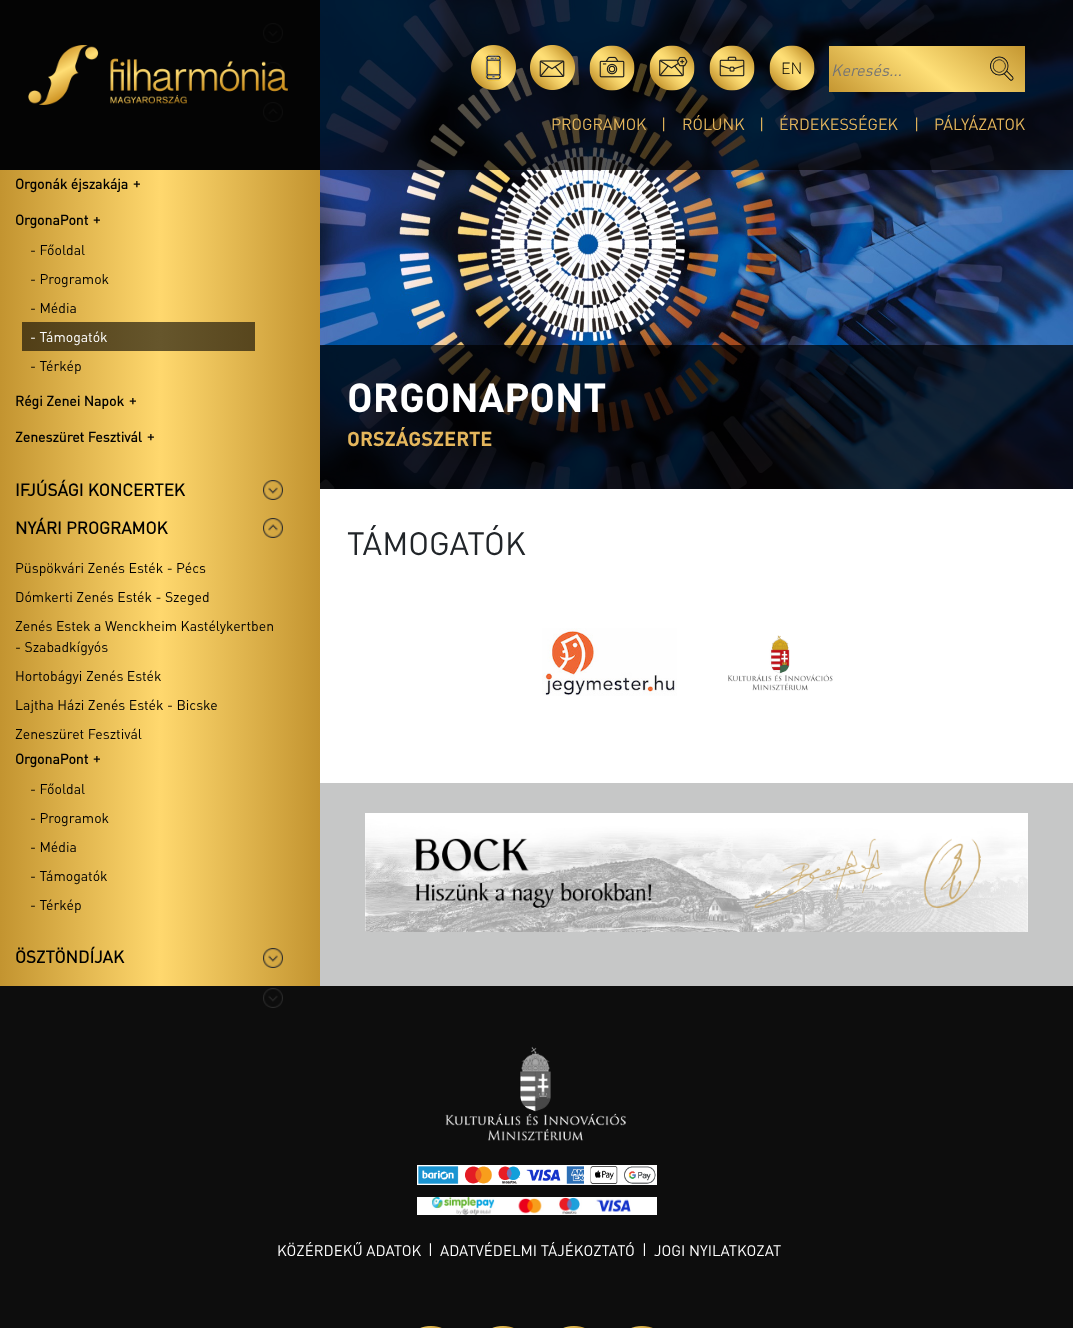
async function draw(canvas) {
	canvas.width = 1073;
	canvas.height = 1328;
	const c = canvas.getContext('2d');
	c.miterLimit = 4;
	c.fontKerning = 'normal';
	async function loadImage(src) {
		const img = new Image();
		img.src = src;
		await img.decode();
		return img;
	}
	let gradient;

	c.fillStyle = '#0d0d0d';
	c.fillRect(0, 0, 1073, 1328);
	c.drawImage(await loadImage('img9.png'), 263, 23, 20, 20);
	c.drawImage(await loadImage('img9.png'), 263, 62, 20, 20);
	c.drawImage(await loadImage('img10.png'), 263, 102, 20, 20);
	c.drawImage(await loadImage('img15.png'), 320, 0, 753, 489);
	c.fillStyle = '#000000ad';
	c.fillRect(0, 0, 1073, 170);
	c.drawImage(await loadImage('img1.png'), 28, 45, 260, 60);
	c.drawImage(await loadImage('img2.png'), 471, 45, 45, 45);
	c.drawImage(await loadImage('img3.png'), 530, 45, 45, 45);
	c.drawImage(await loadImage('img4.png'), 589, 45, 46, 46);
	c.drawImage(await loadImage('img5.png'), 649, 45, 46, 46);
	c.drawImage(await loadImage('img6.png'), 709, 45, 46, 46);
	c.drawImage(await loadImage('img7.png'), 769, 45, 46, 46);
	c.font = '300 16px DIN';
	c.fillStyle = '#000';
	c.fillText('EN', 781, 74);
	gradient = c.createLinearGradient(877, 131, 977, 7.2);
	gradient.addColorStop(0, '#c59631');
	gradient.addColorStop(0.5, '#fedf77');
	gradient.addColorStop(1, '#c59731');
	c.fillStyle = gradient;
	c.fillRect(829, 46, 196, 46);
	c.font = 'italic 16px DIN';
	c.fillStyle = '#757575';
	c.fillText('Keresés...', 831, 76);
	c.drawImage(await loadImage('img8.png'), 990, 56, 24, 25);
	c.font = '16px DIN';
	c.fillStyle = '#e4b65c';
	for (const [text, x, y] of [
		['PROGRAMOK', 551, 130],
		['|', 661, 130],
		['RÓLUNK', 682, 130],
		['|', 759, 130],
		['ÉRDEKESSÉGEK', 779, 130],
		['|', 914, 130],
		['PÁLYÁZATOK', 934, 130],
	]) {
		c.fillText(text, x, y);
	}
	gradient = c.createLinearGradient(0, 578, 320, 578);
	gradient.addColorStop(0, '#c39430');
	gradient.addColorStop(0.5, '#ffd86e');
	gradient.addColorStop(1, '#c39430');
	c.fillStyle = gradient;
	c.fillRect(0, 170, 320, 816);
	gradient = c.createLinearGradient(0, 578, 320, 578);
	gradient.addColorStop(0, '#4e3b13');
	gradient.addColorStop(0.5, '#66562c');
	gradient.addColorStop(1, '#4e3b13');
	c.fillStyle = gradient;
	c.fillRect(22, 322, 8, 29);
	c.fillRect(30, 322, 225, 29);
	c.font = 'bold 14px DIN';
	c.fillStyle = '#000';
	for (const [text, x, y] of [
		['Orgonák éjszakája', 15, 189],
		['+', 133, 188],
		['OrgonaPont', 15, 225],
		['+', 93, 224],
	]) {
		c.fillText(text, x, y);
	}
	c.font = '14px DIN';
	for (const [text, x, y] of [
		['- Főoldal', 30, 255],
		['- Programok', 30, 284],
		['- Média', 30, 313],
	]) {
		c.fillText(text, x, y);
	}
	c.fillStyle = '#fff';
	c.fillText('- Támogatók', 30, 342);
	c.fillStyle = '#000';
	c.fillText('- Térkép', 30, 371);
	c.font = 'bold 14px DIN';
	for (const [text, x, y] of [
		['Régi Zenei Napok', 15, 406],
		['+', 129, 405],
		['Zeneszüret Fesztivál', 15, 442],
		['+', 147, 441],
	]) {
		c.fillText(text, x, y);
	}
	c.font = 'bold 17px DIN';
	c.fillText('IFJÚSÁGI KONCERTEK', 15, 496);
	c.drawImage(await loadImage('img11.png'), 263, 480, 20, 20);
	c.fillText('NYÁRI PROGRAMOK', 15, 534);
	c.drawImage(await loadImage('img12.png'), 263, 518, 20, 20);
	c.font = '14px DIN';
	for (const [text, x, y] of [
		['Püspökvári Zenés Esték - Pécs', 15, 573],
		['Dómkerti Zenés Esték - Szeged', 15, 602],
		['Zenés Estek a Wenckheim Kastélykertben', 15, 631],
		['- Szabadkígyós', 15, 652],
		['Hortobágyi Zenés Esték', 15, 681],
		['Lajtha Házi Zenés Esték - Bicske', 15, 710],
		['Zeneszüret Fesztivál', 15, 739],
	]) {
		c.fillText(text, x, y);
	}
	c.font = 'bold 14px DIN';
	c.fillText('OrgonaPont', 15, 764);
	c.fillText('+', 93, 763);
	c.font = '14px DIN';
	for (const [text, x, y] of [
		['- Főoldal', 30, 794],
		['- Programok', 30, 823],
		['- Média', 30, 852],
		['- Támogatók', 30, 881],
		['- Térkép', 30, 910],
	]) {
		c.fillText(text, x, y);
	}
	c.font = 'bold 17px DIN';
	c.fillText('ÖSZTÖNDÍJAK', 15, 963);
	c.drawImage(await loadImage('img13.png'), 263, 948, 20, 20);
	c.drawImage(await loadImage('img14.png'), 263, 988, 20, 20);
	c.fillStyle = '#000000ba';
	c.fillRect(320, 345, 753, 144);
	c.font = 'bold 40px "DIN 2"';
	c.fillStyle = '#fff';
	c.fillText('ORGONAPONT', 347, 412);
	c.font = 'bold 20px "DIN 2"';
	c.fillStyle = '#e4b65c';
	c.fillText('ORSZÁGSZERTE', 347, 446);
	c.fillStyle = '#fff';
	c.fillRect(320, 489, 753, 294);
	c.font = '32px DIN';
	c.fillStyle = '#212529';
	c.fillText('TÁMOGATÓK', 347, 555);
	c.drawImage(await loadImage('img16.png'), 542, 628, 135, 68);
	c.drawImage(await loadImage('img17.png'), 728, 635, 105, 56);
	c.fillStyle = '#c6c7c7';
	c.fillRect(320, 783, 753, 203);
	c.drawImage(await loadImage('img18.png'), 365, 813, 663, 119);
	c.drawImage(await loadImage('img19.png'), 445, 1046, 181, 95);
	c.drawImage(await loadImage('img20.png'), 417, 1165, 240, 20);
	c.drawImage(await loadImage('img21.png'), 417, 1197, 240, 18);
	c.font = '15px DIN';
	c.fillStyle = '#fff';
	for (const [text, x, y] of [
		['KÖZÉRDEKŰ ADATOK', 277, 1256],
		['|', 428, 1255],
		['ADATVÉDELMI TÁJÉKOZTATÓ', 440, 1256],
		['|', 642, 1255],
		['JOGI NYILATKOZAT', 654, 1256],
	]) {
		c.fillText(text, x, y);
	}
	c.drawImage(await loadImage('img22.png'), 420, 1326, 22, 2);
	c.drawImage(await loadImage('img22.png'), 492, 1326, 22, 2);
	c.drawImage(await loadImage('img22.png'), 563, 1326, 22, 2);
	c.drawImage(await loadImage('img23.png'), 631, 1326, 22, 2);
}

draw(document.querySelector('canvas'));
